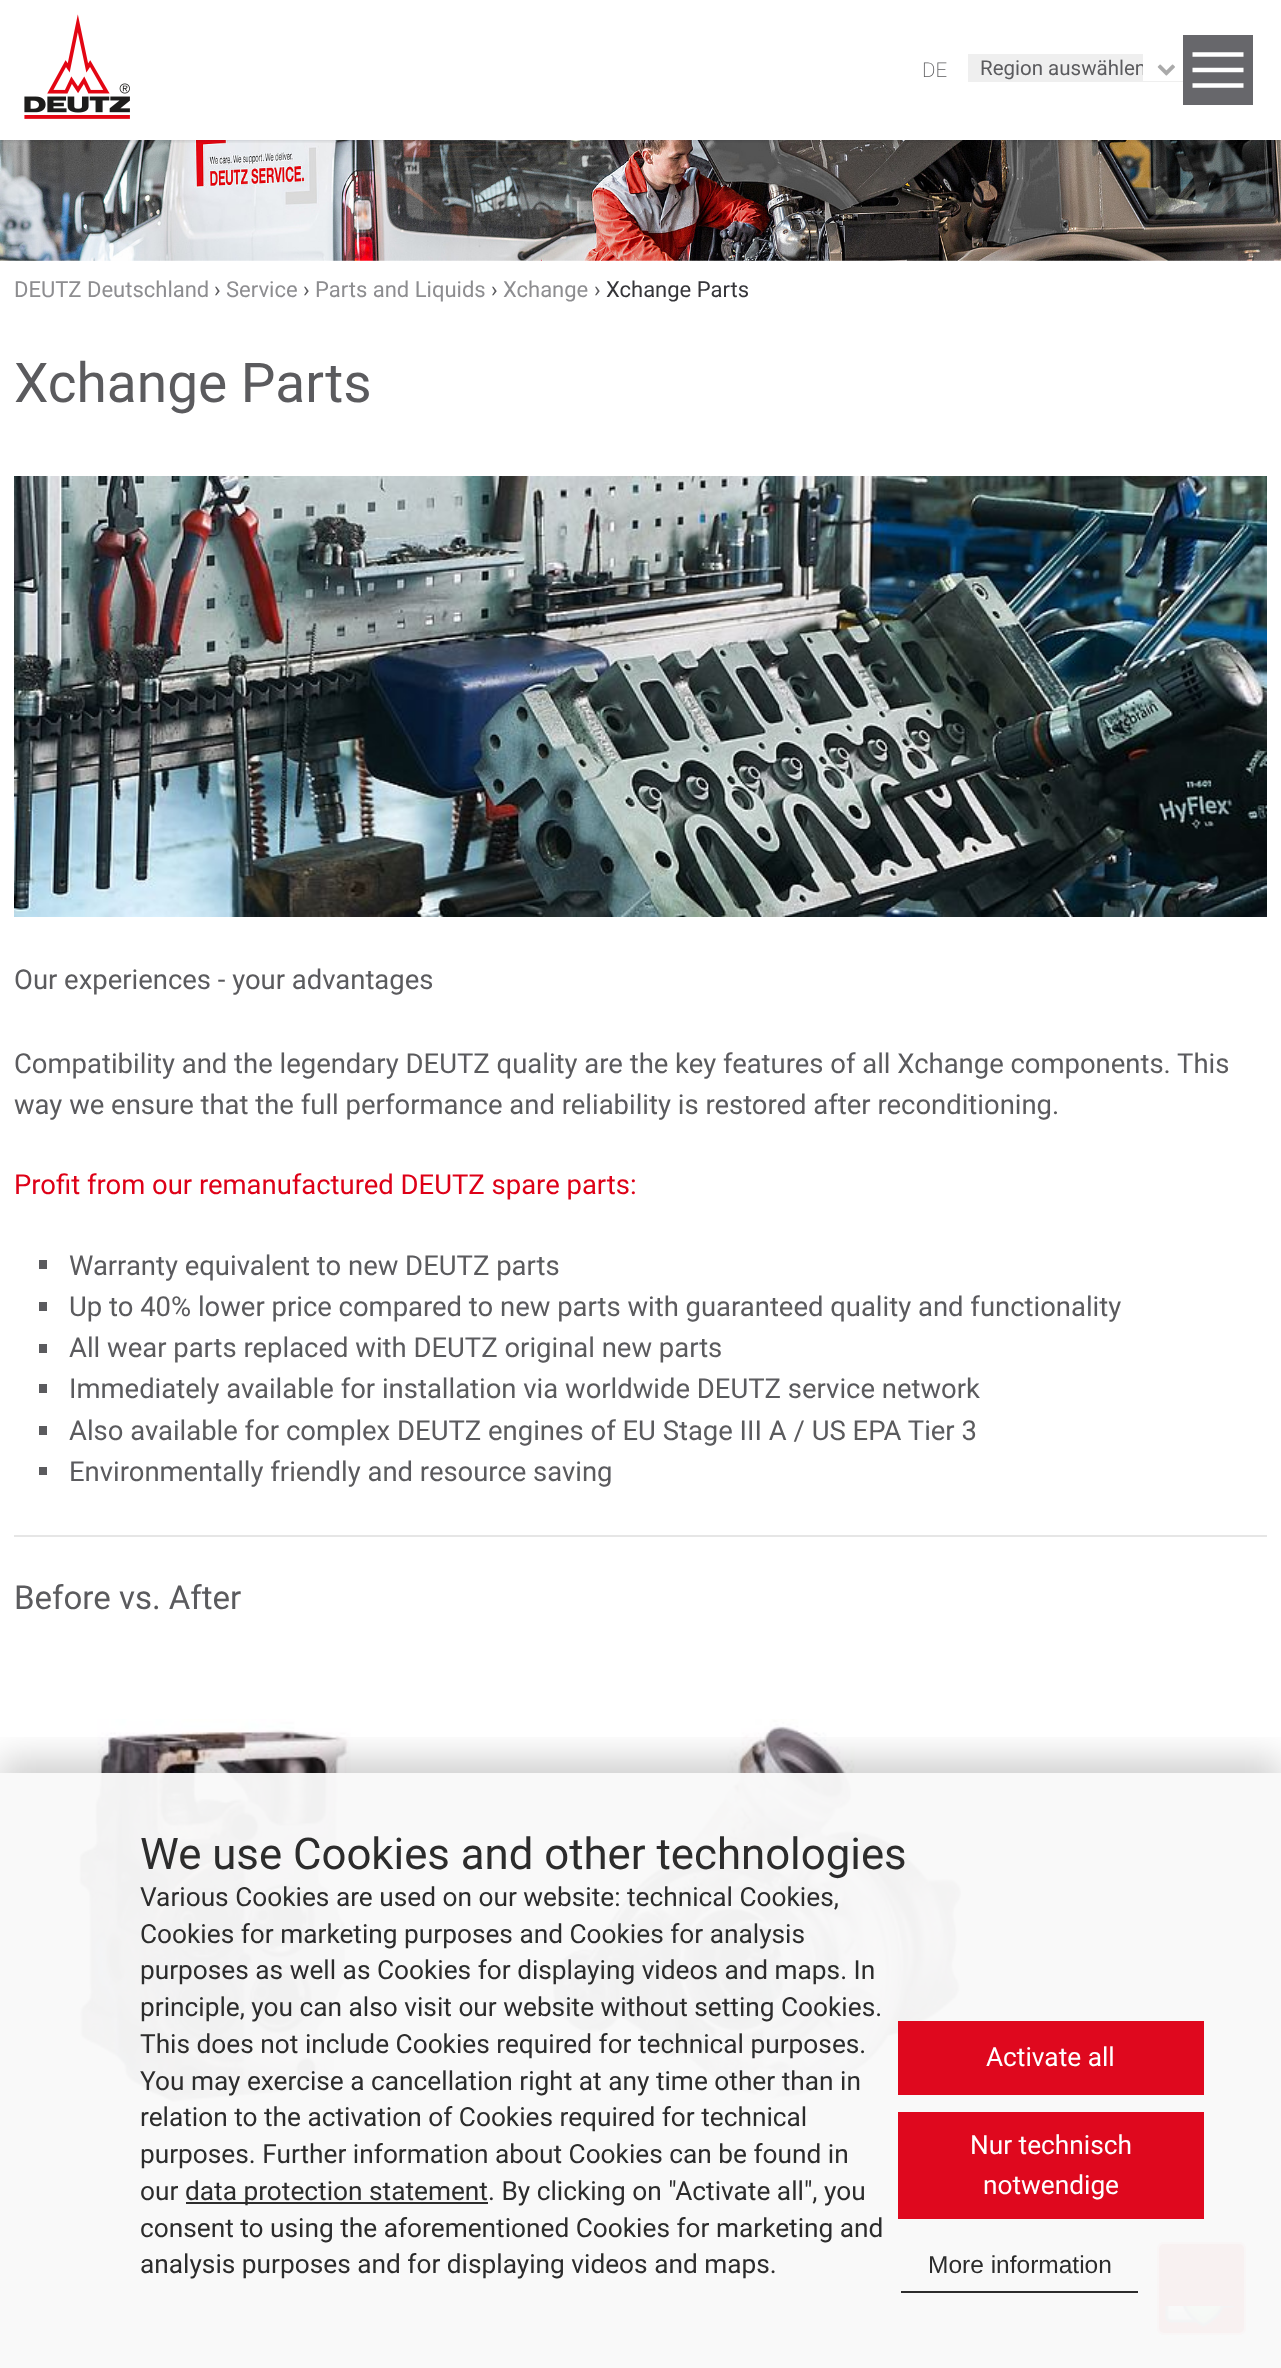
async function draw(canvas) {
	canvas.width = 1281;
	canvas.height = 2368;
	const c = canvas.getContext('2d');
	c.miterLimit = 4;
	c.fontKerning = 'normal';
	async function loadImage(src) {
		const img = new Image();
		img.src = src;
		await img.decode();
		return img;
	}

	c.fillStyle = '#fff';
	c.fillRect(0, 0, 1281, 2368);
	c.drawImage(await loadImage('img3.png'), 0, 140, 1281, 121);
	c.save();
	c.beginPath();
	c.rect(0, 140, 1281, 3);
	c.clip();
	c.fillStyle = '#02020833';
	c.filter = 'blur(2.5px)';
	c.beginPath();
	c.rect(0, 0, 1281, 140);
	c.fill();
	c.filter = 'none';
	c.restore();
	c.drawImage(await loadImage('img1.png'), 24, 14, 106, 105);
	c.font = '200 20.5px Roboto';
	c.fillStyle = '#5b5b5e';
	c.fillText('DE', 922, 77);
	c.fillStyle = '#efefef';
	c.fillRect(968, 54, 215, 28);
	c.font = '20.5px Roboto';
	c.fillStyle = '#5b5b5e';
	c.fillText('Region auswählen', 980, 75);
	c.fillStyle = '#fff';
	c.fillRect(1143, 54, 40, 27);
	c.drawImage(await loadImage('img2.png'), 1157, 64, 18, 12);
	c.fillStyle = '#67676b';
	c.fillRect(1183, 35, 70, 70);
	c.beginPath();
	c.moveTo(1192.5, 54.5);
	c.lineTo(1243.5, 54.5);
	c.moveTo(1192.5, 70);
	c.lineTo(1243.5, 70);
	c.moveTo(1192.5, 85.5);
	c.lineTo(1243.5, 85.5);
	c.strokeStyle = '#fff';
	c.lineWidth = 4.7;
	c.stroke();
	c.font = '22px Roboto';
	c.fillStyle = '#8d8d90';
	c.fillText('DEUTZ Deutschland', 14, 297);
	c.fillStyle = '#5b5b5e';
	c.fillText('›', 214, 297);
	c.fillStyle = '#8d8d90';
	c.fillText('Service', 226, 297);
	c.fillStyle = '#5b5b5e';
	c.fillText('›', 303, 297);
	c.fillStyle = '#8d8d90';
	c.fillText('Parts and Liquids', 315, 297);
	c.fillStyle = '#5b5b5e';
	c.fillText('›', 491, 297);
	c.fillStyle = '#8d8d90';
	c.fillText('Xchange', 503, 297);
	c.fillStyle = '#5b5b5e';
	c.fillText('›', 594, 297);
	c.fillStyle = '#353539';
	c.fillText('Xchange Parts', 606, 297);
	c.font = '55px Roboto';
	c.fillStyle = '#5b5b5e';
	c.fillText('Xchange Parts', 14, 402);
	c.drawImage(await loadImage('img4.png'), 14, 476, 1253, 441);
	c.font = '27.45px Roboto';
	for (const [text, x, y] of [
		['Our experiences - your advantages', 14, 989],
		['Compatibility and the legendary DEUTZ quality are the key features of all Xchange components. This', 14, 1073],
		['way we ensure that the full performance and reliability is restored after reconditioning.', 14, 1114],
	]) {
		c.fillText(text, x, y);
	}
	c.fillStyle = '#de0017';
	c.fillText('Profit from our remanufactured DEUTZ spare parts:', 14, 1194);
	c.fillStyle = '#5b5b5e';
	c.fillRect(39, 1260, 8, 9);
	c.fillText('Warranty equivalent to new DEUTZ parts', 69, 1275);
	c.fillRect(39, 1302, 8, 9);
	c.fillText('Up to 40% lower price compared to new parts with guaranteed quality and functionality', 69, 1316);
	c.fillRect(39, 1344, 8, 9);
	c.fillText('All wear parts replaced with DEUTZ original new parts', 69, 1357);
	c.fillRect(39, 1384, 8, 9);
	c.fillText('Immediately available for installation via worldwide DEUTZ service network', 69, 1398);
	c.fillRect(39, 1426, 8, 9);
	c.fillText('Also available for complex DEUTZ engines of EU Stage III A / US EPA Tier 3', 69, 1440);
	c.fillRect(39, 1467, 8, 8);
	c.fillText('Environmentally friendly and resource saving', 69, 1481);
	c.fillStyle = '#e6e6e6';
	c.fillRect(14, 1535, 1253, 2);
	c.font = '33px Roboto';
	c.fillStyle = '#5b5b5e';
	c.fillText('Before vs. After', 14, 1609);
	c.drawImage(await loadImage('img5.png'), 70, 1719, 896, 391);
	c.fillStyle = '#e6e6e6';
	c.fillRect(14, 2223, 1253, 2);
	c.fillStyle = '#de0017';
	c.beginPath();
	c.roundRect(1157, 2242, 89, 93, 7);
	c.fill();
	c.beginPath();
	c.roundRect(1158, 2243, 87, 91, 6);
	c.strokeStyle = '#ffffff96';
	c.lineWidth = 2;
	c.stroke();
	c.drawImage(await loadImage('img6.png'), 1164, 2306, 72, 22);
	c.save();
	c.beginPath();
	c.rect(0, 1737, 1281, 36);
	c.clip();
	c.fillStyle = '#00000030';
	c.filter = 'blur(17.5px)';
	c.beginPath();
	c.rect(0, 1759, 1281, 597);
	c.fill();
	c.filter = 'none';
	c.restore();
	c.fillStyle = '#f9f9f9f7';
	c.fillRect(0, 1773, 1281, 595);
	c.font = '43.75px Roboto';
	c.fillStyle = '#2c2c2c';
	c.fillText('We use Cookies and other technologies', 140, 1869);
	c.font = '26.25px Roboto';
	for (const [text, x, y] of [
		['Various Cookies are used on our website: technical Cookies,', 140, 1906],
		['Cookies for marketing purposes and Cookies for analysis', 140, 1943],
		['purposes as well as Cookies for displaying videos and maps. In', 140, 1979],
		['principle, you can also visit our website without setting Cookies.', 140, 2016],
		['This does not include Cookies required for technical purposes.', 140, 2053],
		['You may exercise a cancellation right at any time other than in', 140, 2090],
		['relation to the activation of Cookies required for technical', 140, 2126],
		['purposes. Further information about Cookies can be found in', 140, 2163],
		['our', 140, 2200],
	]) {
		c.fillText(text, x, y);
	}
	c.fillStyle = '#2d2d2d';
	c.fillRect(186, 2202, 302, 2);
	c.fillStyle = '#2c2c2c';
	for (const [text, x, y] of [
		['data protection statement. By clicking on "Activate all", you', 185, 2200],
		['consent to using the aforementioned Cookies for marketing and', 140, 2237],
		['analysis purposes and for displaying videos and maps.', 140, 2273],
	]) {
		c.fillText(text, x, y);
	}
	c.fillStyle = '#de0017f7';
	c.fillRect(898, 2021, 306, 74);
	c.fillStyle = '#fff';
	c.fillText('Activate all', 986, 2066);
	c.fillStyle = '#df081e';
	c.fillRect(898, 2112, 306, 107);
	c.fillStyle = '#fff';
	c.fillText('Nur technisch', 970, 2154);
	c.fillText('notwendige', 983, 2194);
	c.fillStyle = '#2d2d2d';
	c.fillRect(901, 2291, 237, 2);
	c.font = '24.5px Liberation Sans';
	c.fillStyle = '#2c2c2c';
	c.fillText('More information', 928, 2273);
}

draw(document.querySelector('canvas'));
